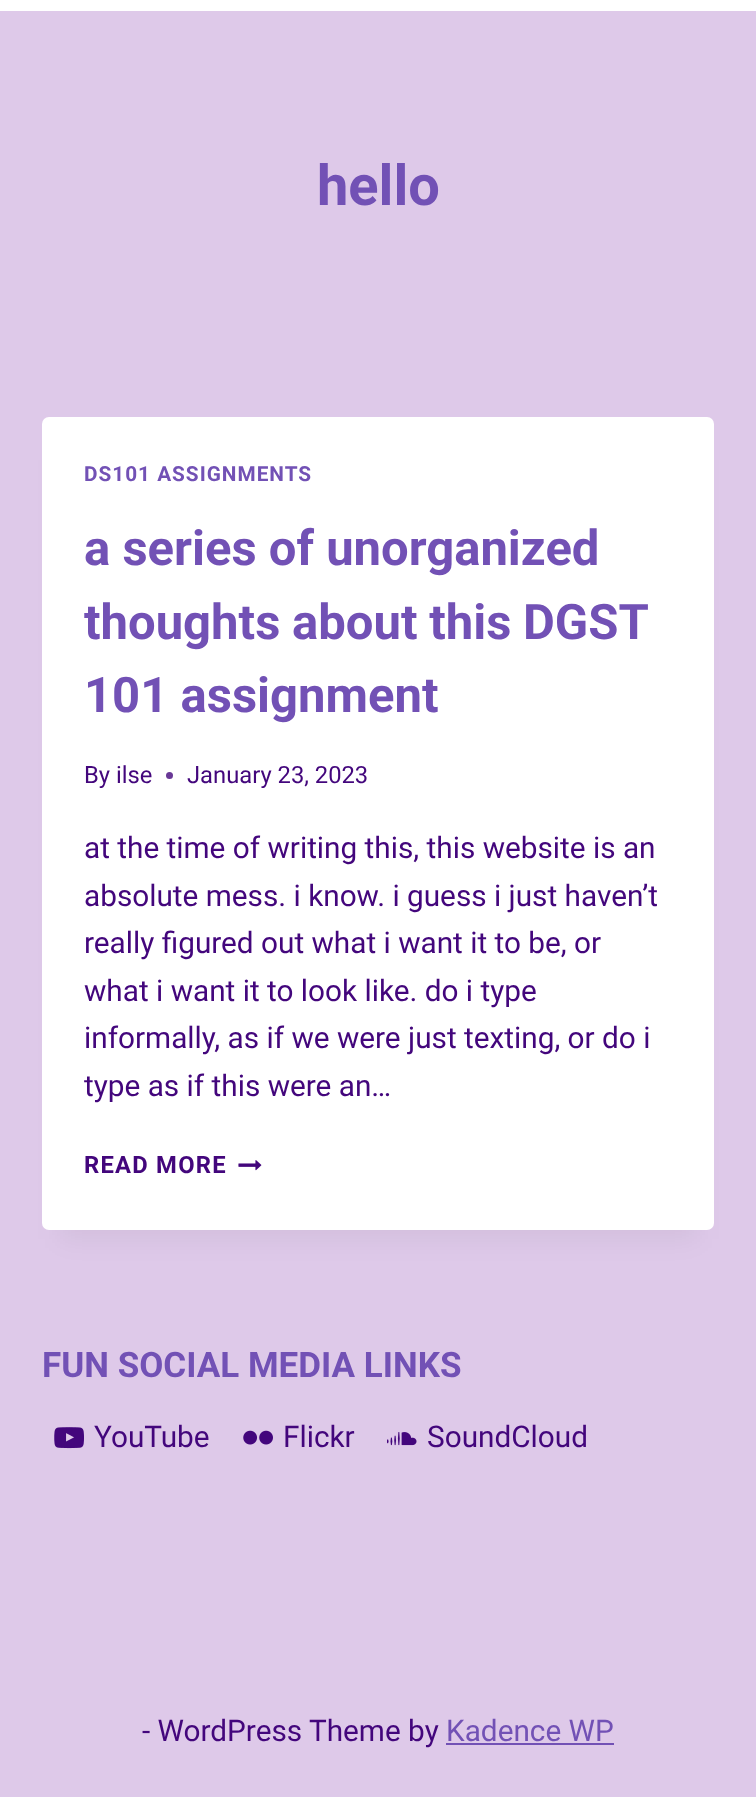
async function draw(canvas) {
	canvas.width = 756;
	canvas.height = 1797;
	const c = canvas.getContext('2d');
	c.miterLimit = 4;
	c.fontKerning = 'normal';
	async function loadImage(src) {
		const img = new Image();
		img.src = src;
		await img.decode();
		return img;
	}

	c.fillStyle = '#dec9e9';
	c.fillRect(0, 0, 756, 1797);
	c.fillStyle = '#fff';
	c.fillRect(0, 0, 756, 11);
	c.font = 'bold 56px Roboto';
	c.fillStyle = '#7251b5';
	c.fillText('hello', 317, 205);
	c.fillStyle = '#0000000d';
	c.filter = 'blur(13px)';
	c.beginPath();
	c.rect(60, 460, 637, 779);
	c.fill();
	c.filter = 'none';
	c.fillStyle = '#fff';
	c.beginPath();
	c.roundRect(42, 417, 672, 813, 7);
	c.fill();
	c.letterSpacing = '1px';
	c.font = 'bold 20.75px Roboto';
	c.fillStyle = '#7251b5';
	c.fillText('DS101 ASSIGNMENTS', 84, 481);
	c.letterSpacing = '0px';
	c.font = 'bold 49px Roboto';
	c.fillText('a series of unorganized', 84, 565);
	c.wordSpacing = '-0.5px';
	c.fillText('thoughts about this DGST', 84, 639);
	c.wordSpacing = '0px';
	c.fillText('101 assignment', 84, 712);
	c.font = '23.75px Roboto';
	c.fillStyle = '#43067c';
	c.fillText('By', 84, 783);
	c.fillText('ilse', 116, 783);
	c.fillStyle = '#693896';
	c.beginPath();
	c.arc(169.5, 775.5, 3.5, 0, 2 * Math.PI);
	c.fill();
	c.fillStyle = '#43067c';
	c.fillText('January 23, 2023', 187, 783);
	c.font = '29.75px Roboto';
	for (const [text, x, y] of [
		['at the time of writing this, this website is an', 84, 858],
		['absolute mess. i know. i guess i just haven’t', 84, 906],
		['really figured out what i want it to be, or', 84, 953],
		['what i want it to look like. do i type', 84, 1001],
		['informally, as if we were just texting, or do i', 84, 1048],
		['type as if this were an…', 84, 1096],
	]) {
		c.fillText(text, x, y);
	}
	c.letterSpacing = '1.25px';
	c.font = 'bold 23.75px Roboto';
	c.fillText('READ MORE', 84, 1173);
	c.drawImage(await loadImage('img1.png'), 238, 1160, 24, 11);
	c.letterSpacing = '0px';
	c.font = 'bold 35px Roboto';
	c.fillStyle = '#7251b5';
	c.fillText('FUN SOCIAL MEDIA LINKS', 42, 1377);
	c.drawImage(await loadImage('img2.png'), 54, 1427, 30, 22);
	c.font = '29.75px Roboto';
	c.fillStyle = '#43067c';
	c.fillText('YouTube', 94, 1447);
	c.drawImage(await loadImage('img3.png'), 243, 1430, 30, 15);
	c.fillText('Flickr', 283, 1447);
	c.drawImage(await loadImage('img4.png'), 387, 1432, 30, 14);
	c.fillText('SoundCloud', 427, 1447);
	c.fillText('- WordPress Theme by', 142, 1741);
	c.fillStyle = '#7251b5';
	c.fillText('Kadence WP', 446, 1741);
	c.fillRect(446, 1743, 168, 2);
}

draw(document.querySelector('canvas'));
